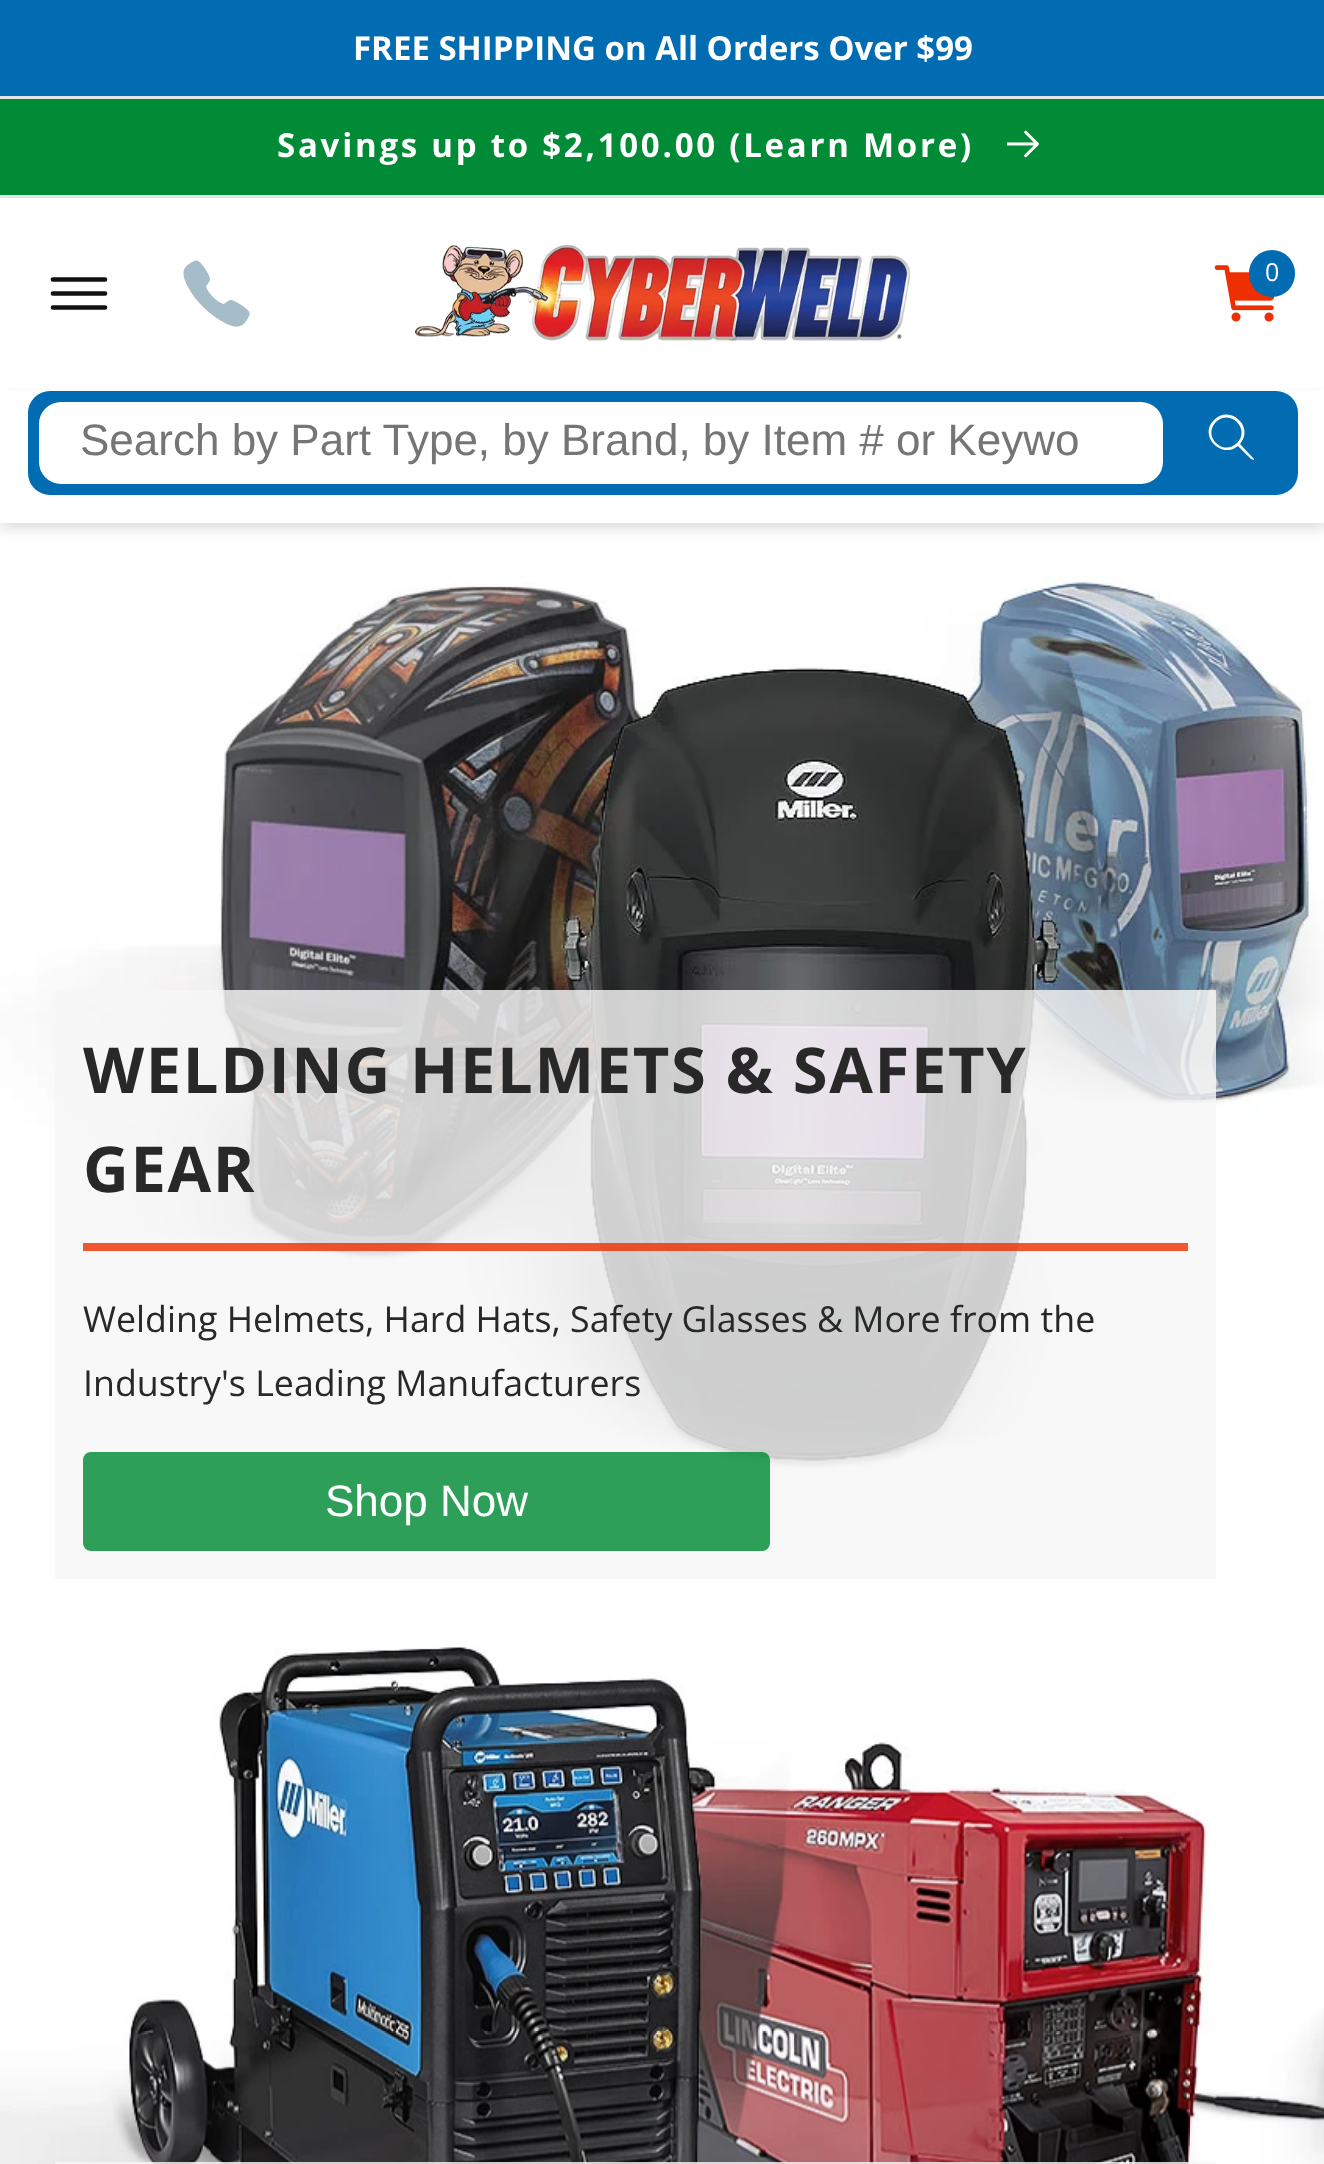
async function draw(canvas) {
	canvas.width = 1324;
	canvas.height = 2164;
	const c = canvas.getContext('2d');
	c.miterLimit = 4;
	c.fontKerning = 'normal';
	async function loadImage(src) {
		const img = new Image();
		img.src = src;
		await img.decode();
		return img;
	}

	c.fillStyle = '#fff';
	c.fillRect(0, 0, 1324, 2164);
	c.fillStyle = '#016cb1';
	c.fillRect(0, 0, 1324, 96);
	c.fillStyle = '#e5e5e5';
	c.fillRect(0, 96, 1324, 3);
	c.font = 'bold 33px Open Sans';
	c.fillStyle = '#fff';
	c.fillText('FREE SHIPPING on All Orders Over $99', 353, 60);
	c.fillStyle = '#028b36';
	c.fillRect(0, 99, 1324, 96);
	c.fillStyle = '#e5e5e5';
	c.fillRect(0, 195, 1324, 3);
	c.letterSpacing = '2.75px';
	c.fillStyle = '#fff';
	c.fillText('Savings up to $2,100.00 (Learn More)', 277, 157);
	c.drawImage(await loadImage('img1.png'), 1007, 130, 32, 28);
	c.fillStyle = '#00000012';
	c.filter = 'blur(7px)';
	c.beginPath();
	c.rect(0, 204, 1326, 324);
	c.fill();
	c.filter = 'none';
	c.fillStyle = '#fff';
	c.fillRect(0, 198, 1324, 193);
	c.beginPath();
	c.moveTo(53, 279.5);
	c.lineTo(105, 279.5);
	c.moveTo(53, 293.5);
	c.lineTo(105, 293.5);
	c.moveTo(53, 307.5);
	c.lineTo(105, 307.5);
	c.strokeStyle = '#121212';
	c.lineWidth = 4.7;
	c.lineCap = 'round';
	c.stroke();
	c.drawImage(await loadImage('img2.png'), 183, 260, 67, 67);
	c.drawImage(await loadImage('img3.png'), 415, 245, 495, 96);
	c.drawImage(await loadImage('img4.png'), 1214, 265, 61, 57);
	c.fillStyle = '#016cb1';
	c.beginPath();
	c.roundRect(1249, 250, 46, 47, 23);
	c.fill();
	c.letterSpacing = '0px';
	c.font = '25px Open Sans';
	c.fillStyle = '#fff';
	c.fillText('0', 1265, 281);
	c.fillStyle = '#00000012';
	c.filter = 'blur(7px)';
	c.beginPath();
	c.rect(0, 396, 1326, 132);
	c.fill();
	c.filter = 'none';
	c.fillStyle = '#fff';
	c.fillRect(0, 391, 1324, 132);
	c.fillStyle = '#016cb1';
	c.beginPath();
	c.roundRect(28, 391, 1270, 104, 22);
	c.fill();
	c.fillStyle = '#fff';
	c.beginPath();
	c.roundRect(39, 402, 1124, 82, 22);
	c.fill();
	c.font = '44px Liberation Sans';
	c.fillStyle = '#757575';
	c.fillText('Search by Part Type, by Brand, by Item # or Keywo', 80, 455);
	c.fillStyle = '#fff';
	c.beginPath();
	c.moveTo(1237, 443);
	c.bezierCurveTo(1223, 457, 1202, 436, 1216, 422);
	c.bezierCurveTo(1230, 408, 1251, 429, 1237, 443);
	c.closePath();
	c.moveTo(1238, 446);
	c.bezierCurveTo(1221, 460, 1198, 435, 1214, 420);
	c.bezierCurveTo(1230, 404, 1255, 427, 1240, 444);
	c.lineTo(1254, 459);
	c.lineTo(1254, 460);
	c.bezierCurveTo(1252, 461, 1240, 448, 1238, 446);
	c.closePath();
	c.fill('evenodd');
	c.drawImage(await loadImage('img5.png'), 0, 576, 1324, 895);
	c.fillStyle = '#f6f6f6d1';
	c.fillRect(55, 990, 1161, 589);
	c.fillStyle = '#ee3204d1';
	c.fillRect(83, 1243, 1105, 8);
	c.letterSpacing = '1.65px';
	c.font = 'bold 63.25px Open Sans';
	c.fillStyle = '#282828';
	c.fillText('WELDING HELMETS & SAFETY', 83, 1093);
	c.fillText('GEAR', 83, 1192);
	c.letterSpacing = '0px';
	c.font = '35.75px Open Sans';
	c.fillText('Welding Helmets, Hard Hats, Safety Glasses & More from the', 83, 1332);
	c.fillText('Industry\'s Leading Manufacturers', 83, 1396);
	c.fillStyle = '#018b36d1';
	c.beginPath();
	c.roundRect(83, 1452, 687, 99, 8);
	c.fill();
	c.font = '44px Liberation Sans';
	c.fillStyle = '#fff';
	c.fillText('Shop Now', 325, 1516);
	c.drawImage(await loadImage('img6.png'), 0, 1647, 1324, 517);
	c.fillStyle = '#f6f6f6d1';
	c.fillRect(55, 2162, 1161, 2);
}

draw(document.querySelector('canvas'));
